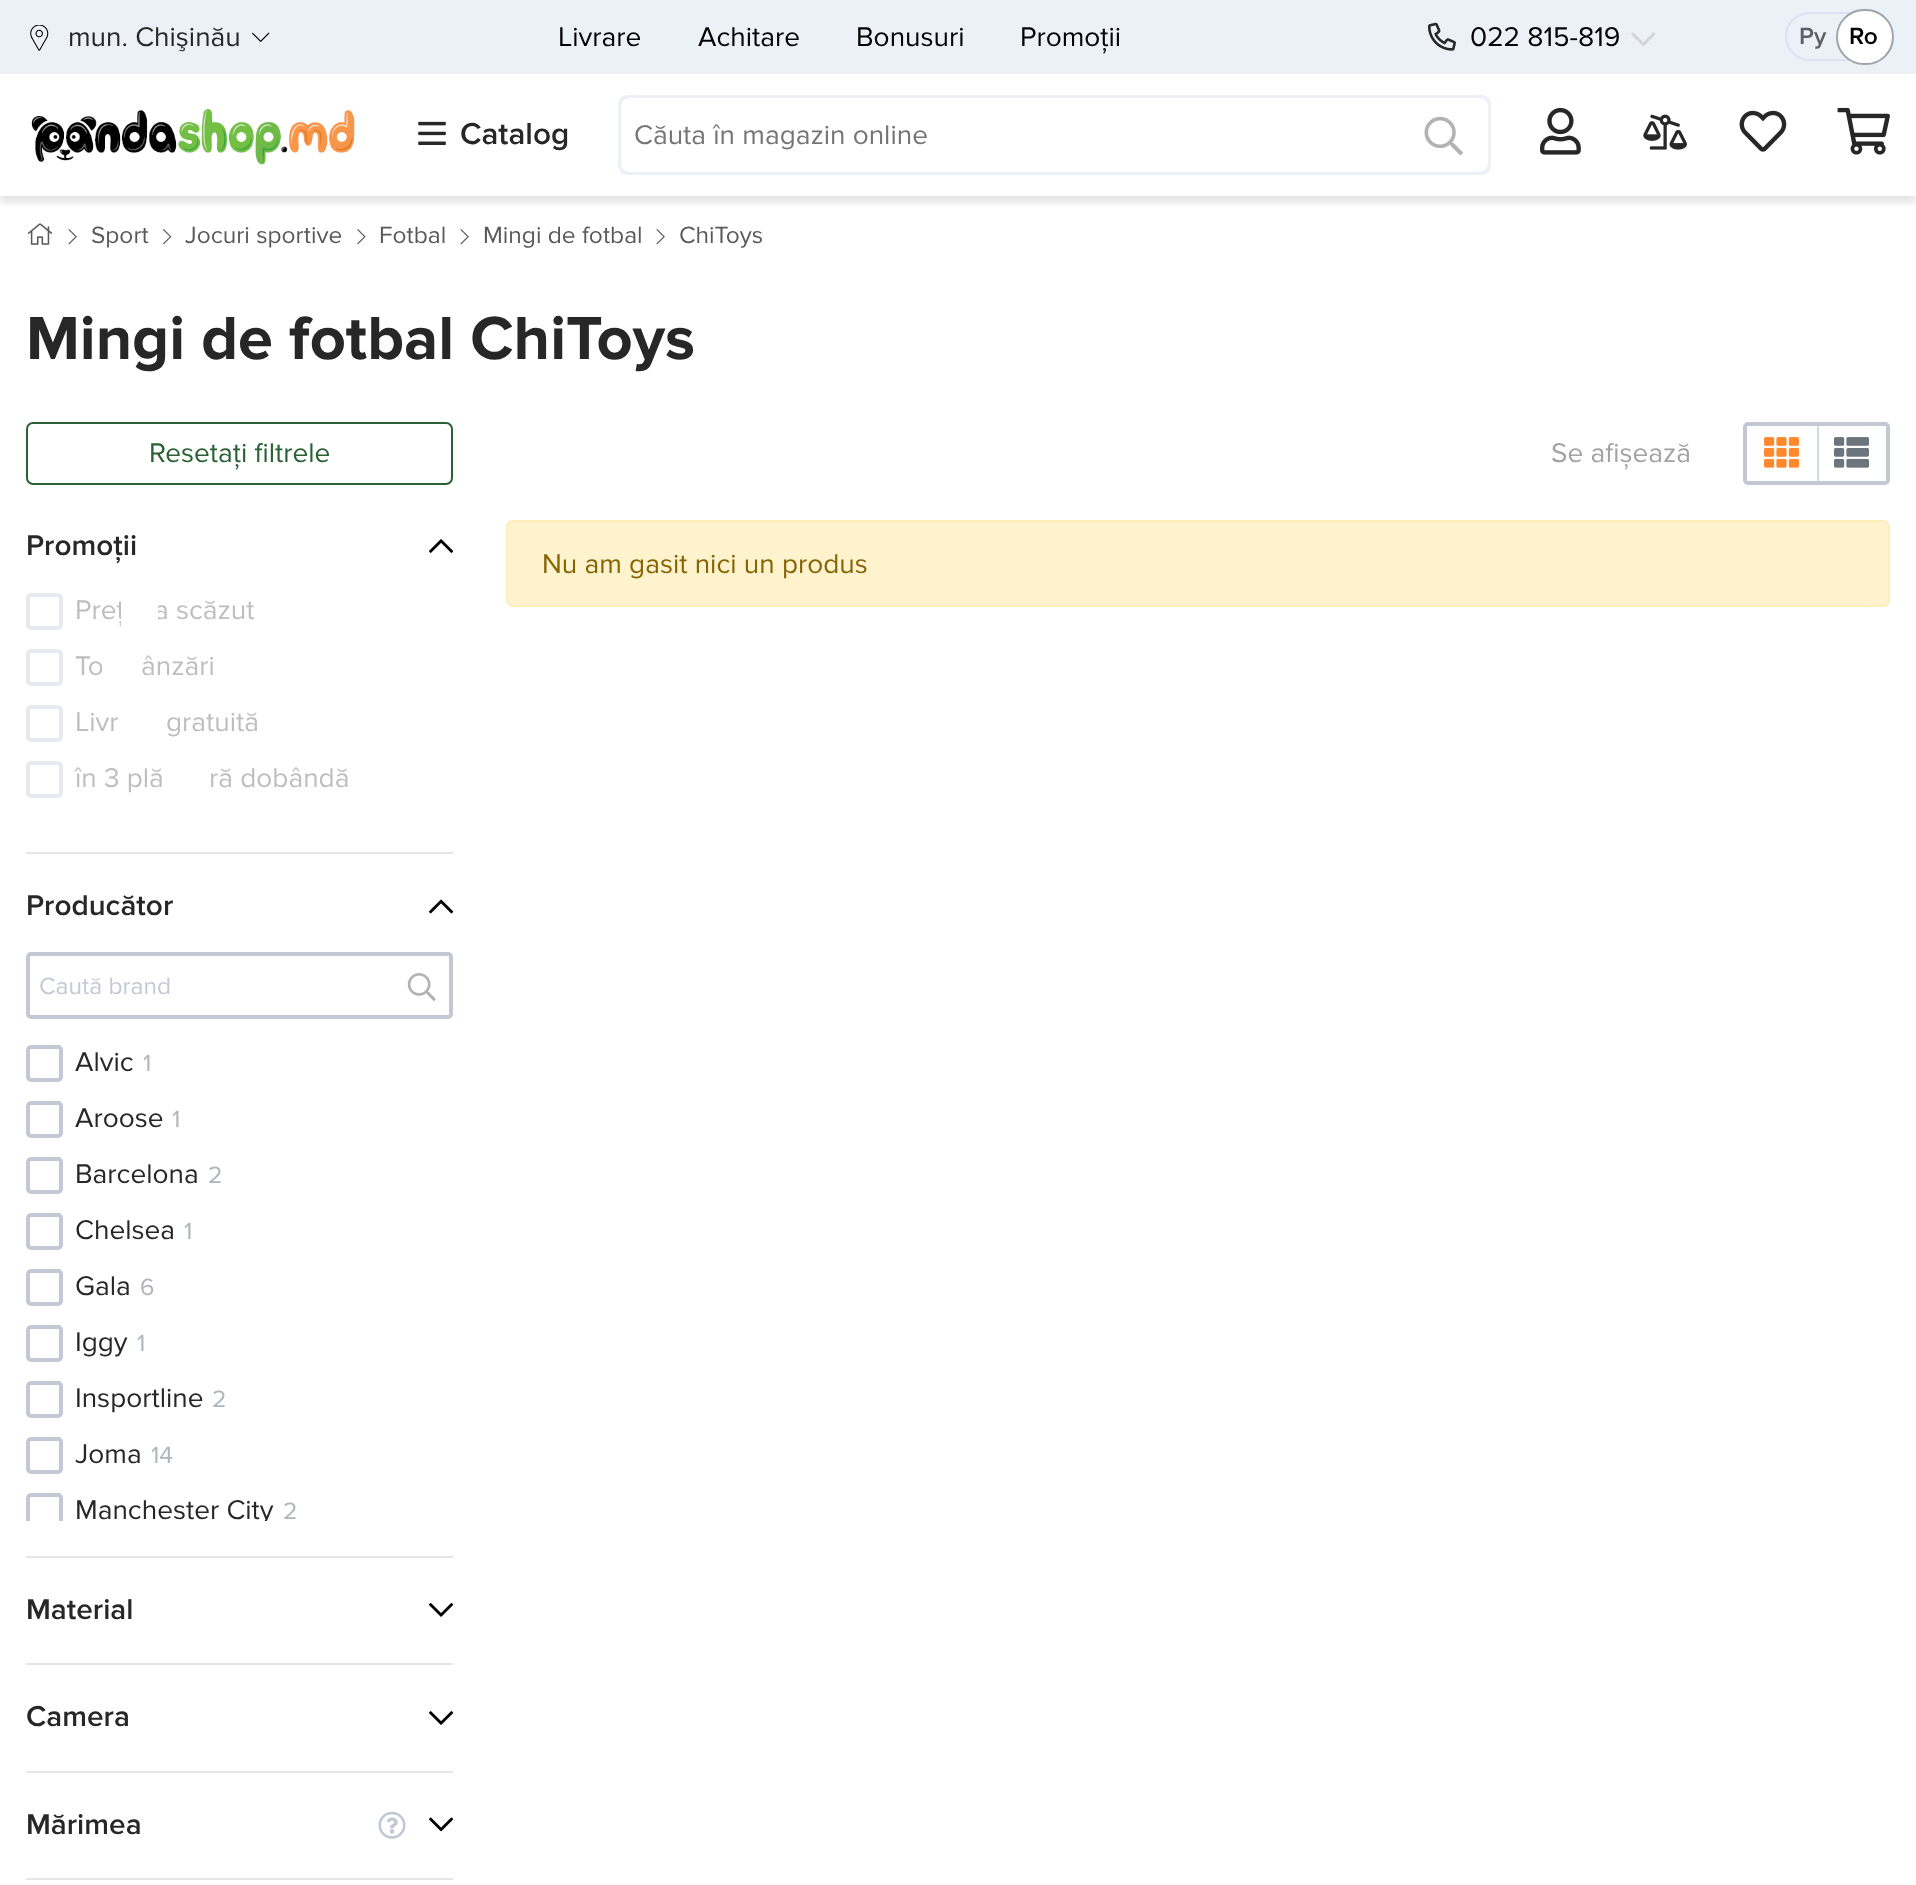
async function draw(canvas) {
	canvas.width = 1916;
	canvas.height = 1885;
	const c = canvas.getContext('2d');
	c.miterLimit = 4;
	c.fontKerning = 'normal';
	async function loadImage(src) {
		const img = new Image();
		img.src = src;
		await img.decode();
		return img;
	}

	c.fillStyle = '#fff';
	c.fillRect(0, 0, 1916, 1885);
	c.fillStyle = '#ecf1f8';
	c.fillRect(0, 0, 1916, 74);
	c.save();
	c.beginPath();
	c.rect(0, 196, 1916, 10);
	c.clip();
	c.fillStyle = '#0000001a';
	c.filter = 'blur(3.5px)';
	c.beginPath();
	c.rect(0, 7, 1916, 196);
	c.fill();
	c.filter = 'none';
	c.restore();
	c.drawImage(await loadImage('img1.png'), 252, 32, 18, 10);
	c.drawImage(await loadImage('img2.png'), 30, 25, 19, 26);
	c.font = '28px Proxima Nova';
	c.fillStyle = '#272727';
	c.fillText('mun. Chişinău', 68, 46);
	c.fillStyle = '#000';
	for (const [text, x, y] of [
		['Livrare', 558, 46],
		['Achitare', 698, 46],
		['Bonusuri', 856, 46],
		['Promoții', 1020, 46],
	]) {
		c.fillText(text, x, y);
	}
	c.drawImage(await loadImage('img3.png'), 1427, 22, 29, 29);
	c.fillText('022 815-819', 1470, 46);
	c.drawImage(await loadImage('img4.png'), 1631, 32, 25, 15);
	c.beginPath();
	c.roundRect(1786, 13, 103, 47, 23.5);
	c.strokeStyle = '#d9e3f1';
	c.lineWidth = 2;
	c.stroke();
	c.font = '600 24.5px Proxima Nova';
	c.fillStyle = '#5e6063';
	c.fillText('Ру', 1799, 44);
	c.fillStyle = '#fff';
	c.beginPath();
	c.roundRect(1837, 10, 56, 54, 27);
	c.fill();
	c.strokeStyle = '#9ca5ac';
	c.stroke();
	c.fillStyle = '#000';
	c.fillText('Ro', 1849, 44);
	c.drawImage(await loadImage('img5.png'), 31, 109, 324, 56);
	c.drawImage(await loadImage('img6.png'), 418, 121, 28, 24);
	c.font = '600 31.5px Proxima Nova';
	c.fillStyle = '#272727';
	c.fillText('Catalog', 460, 144);
	c.beginPath();
	c.roundRect(620, 97, 869, 76, 7);
	c.strokeStyle = '#ecf1f8';
	c.lineWidth = 4;
	c.stroke();
	c.fillStyle = '#fff';
	c.beginPath();
	c.roundRect(621, 98, 867, 74, 9);
	c.fill();
	c.font = '28px Proxima Nova';
	c.fillStyle = '#757575';
	c.fillText('Căuta în magazin online', 634, 144);
	c.drawImage(await loadImage('img7.png'), 1424, 116, 39, 40);
	c.drawImage(await loadImage('img8.png'), 1540, 107, 41, 48);
	c.drawImage(await loadImage('img9.png'), 1643, 114, 44, 36);
	c.drawImage(await loadImage('img10.png'), 1739, 110, 48, 42);
	c.drawImage(await loadImage('img11.png'), 1837, 107, 53, 48);
	c.drawImage(await loadImage('img12.png'), 27, 223, 26, 22);
	c.drawImage(await loadImage('img13.png'), 68, 229, 9, 16);
	c.font = '24.5px Proxima Nova';
	c.fillStyle = '#595959';
	c.fillText('Sport', 91, 243);
	c.drawImage(await loadImage('img14.png'), 163, 229, 9, 16);
	c.fillText('Jocuri sportive', 185, 243);
	c.drawImage(await loadImage('img15.png'), 357, 229, 9, 16);
	c.fillText('Fotbal', 379, 243);
	c.drawImage(await loadImage('img13.png'), 460, 229, 9, 16);
	c.fillText('Mingi de fotbal', 483, 243);
	c.drawImage(await loadImage('img13.png'), 656, 229, 9, 16);
	c.fillText('ChiToys', 679, 243);
	c.font = 'bold 63px Proxima Nova';
	c.fillStyle = '#272727';
	c.fillText('Mingi de fotbal ChiToys', 26, 359);
	c.beginPath();
	c.roundRect(27, 423, 425, 61, 6);
	c.strokeStyle = '#296034';
	c.lineWidth = 2;
	c.stroke();
	c.font = '28px Proxima Nova';
	c.fillStyle = '#296034';
	c.fillText('Resetați filtrele', 149, 462);
	c.fillStyle = '#e7e6e6';
	c.fillRect(26, 852, 427, 2);
	c.font = '600 29.75px Proxima Nova';
	c.fillStyle = '#272727';
	c.fillText('Promoții', 26, 555);
	c.drawImage(await loadImage('img16.png'), 429, 539, 25, 14);
	c.beginPath();
	c.roundRect(28, 595, 33, 33, 3);
	c.strokeStyle = '#e7e9ee';
	c.lineWidth = 4;
	c.stroke();
	c.font = '28px Proxima Nova';
	c.fillStyle = '#bebebe';
	c.fillText('Preț', 75, 619);
	c.fillText('a scăzut', 154, 619);
	c.fillStyle = '#fff';
	c.beginPath();
	c.roundRect(121, 593, 37, 37, 4);
	c.fill();
	c.beginPath();
	c.roundRect(28, 651, 33, 33, 3);
	c.stroke();
	c.fillStyle = '#bebebe';
	c.fillText('To', 75, 675);
	c.fillStyle = '#fff';
	c.beginPath();
	c.roundRect(102, 649, 36, 37, 4);
	c.fill();
	c.fillStyle = '#bebebe';
	c.fillText('ânzări', 141, 675);
	c.beginPath();
	c.roundRect(28, 707, 33, 33, 3);
	c.stroke();
	c.fillText('Livr', 75, 731);
	c.fillText('gratuită', 166, 731);
	c.beginPath();
	c.roundRect(28, 763, 33, 33, 3);
	c.stroke();
	c.fillText('în 3 plă', 75, 787);
	c.fillText('ră dobândă', 209, 787);
	c.fillStyle = '#e7e6e6';
	c.fillRect(26, 1556, 427, 2);
	c.font = '600 29.75px Proxima Nova';
	c.fillStyle = '#272727';
	c.fillText('Producător', 26, 915);
	c.drawImage(await loadImage('img17.png'), 429, 899, 25, 15);
	c.beginPath();
	c.roundRect(28, 954, 423, 63, 3);
	c.strokeStyle = '#c2c9d4';
	c.stroke();
	c.font = '24.5px Proxima Nova';
	c.fillStyle = '#c2c9d4';
	c.fillText('Caută brand', 39, 994);
	c.drawImage(await loadImage('img18.png'), 407, 973, 29, 28);
	c.beginPath();
	c.roundRect(28, 1047, 33, 33, 3);
	c.stroke();
	c.font = '28px Proxima Nova';
	c.fillStyle = '#272727';
	c.fillText('Alvic', 75, 1071);
	c.font = '24.5px Proxima Nova';
	c.fillStyle = '#adb5bd';
	c.fillText('1', 143, 1071);
	c.beginPath();
	c.roundRect(28, 1103, 33, 33, 3);
	c.stroke();
	c.font = '28px Proxima Nova';
	c.fillStyle = '#272727';
	c.fillText('Aroose', 75, 1127);
	c.font = '24.5px Proxima Nova';
	c.fillStyle = '#adb5bd';
	c.fillText('1', 172, 1127);
	c.beginPath();
	c.roundRect(28, 1159, 33, 33, 3);
	c.stroke();
	c.font = '28px Proxima Nova';
	c.fillStyle = '#272727';
	c.fillText('Barcelona', 75, 1183);
	c.font = '24.5px Proxima Nova';
	c.fillStyle = '#adb5bd';
	c.fillText('2', 208, 1183);
	c.beginPath();
	c.roundRect(28, 1215, 33, 33, 3);
	c.stroke();
	c.font = '28px Proxima Nova';
	c.fillStyle = '#272727';
	c.fillText('Chelsea', 75, 1239);
	c.font = '24.5px Proxima Nova';
	c.fillStyle = '#adb5bd';
	c.fillText('1', 184, 1239);
	c.beginPath();
	c.roundRect(28, 1271, 33, 33, 3);
	c.stroke();
	c.font = '28px Proxima Nova';
	c.fillStyle = '#272727';
	c.fillText('Gala', 75, 1295);
	c.font = '24.5px Proxima Nova';
	c.fillStyle = '#adb5bd';
	c.fillText('6', 140, 1295);
	c.beginPath();
	c.roundRect(28, 1327, 33, 33, 3);
	c.stroke();
	c.font = '28px Proxima Nova';
	c.fillStyle = '#272727';
	c.fillText('Iggy', 75, 1351);
	c.font = '24.5px Proxima Nova';
	c.fillStyle = '#adb5bd';
	c.fillText('1', 137, 1351);
	c.beginPath();
	c.roundRect(28, 1383, 33, 33, 3);
	c.stroke();
	c.font = '28px Proxima Nova';
	c.fillStyle = '#272727';
	c.fillText('Insportline', 75, 1407);
	c.font = '24.5px Proxima Nova';
	c.fillStyle = '#adb5bd';
	c.fillText('2', 212, 1407);
	c.beginPath();
	c.roundRect(28, 1439, 33, 33, 3);
	c.stroke();
	c.font = '28px Proxima Nova';
	c.fillStyle = '#272727';
	c.fillText('Joma', 75, 1463);
	c.font = '24.5px Proxima Nova';
	c.fillStyle = '#adb5bd';
	c.fillText('14', 151, 1463);
	c.save();
	c.beginPath();
	c.rect(26, 1045, 427, 476);
	c.clip();
	c.beginPath();
	c.roundRect(28, 1495, 33, 33, 3);
	c.stroke();
	c.font = '28px Proxima Nova';
	c.fillStyle = '#272727';
	c.fillText('Manchester City', 75, 1519);
	c.restore();
	c.fillText('2', 283, 1519);
	c.fillStyle = '#e7e6e6';
	c.fillRect(26, 1663, 427, 2);
	c.font = '600 29.75px Proxima Nova';
	c.fillStyle = '#272727';
	c.fillText('Material', 26, 1619);
	c.drawImage(await loadImage('img19.png'), 429, 1603, 25, 14);
	c.fillStyle = '#e7e6e6';
	c.fillRect(26, 1771, 427, 2);
	c.fillStyle = '#272727';
	c.fillText('Camera', 26, 1726);
	c.drawImage(await loadImage('img20.png'), 429, 1711, 25, 14);
	c.fillStyle = '#e7e6e6';
	c.fillRect(26, 1878, 427, 2);
	c.fillStyle = '#272727';
	c.fillText('Mărimea', 26, 1834);
	c.drawImage(await loadImage('img21.png'), 378, 1811, 28, 28);
	c.drawImage(await loadImage('img22.png'), 429, 1817, 25, 15);
	c.font = '28px Proxima Nova';
	c.fillStyle = '#a3a3a3';
	c.fillText('Se afișează', 1551, 462);
	c.beginPath();
	c.roundRect(1745, 424, 143, 59, 3);
	c.stroke();
	c.drawImage(await loadImage('img23.png'), 1764, 437, 35, 31);
	c.fillStyle = '#c2c9d4b3';
	c.fillRect(1817, 425, 2, 56);
	c.drawImage(await loadImage('img24.png'), 1834, 437, 35, 31);
	c.fillStyle = '#fff3cd';
	c.beginPath();
	c.roundRect(507, 521, 1382, 85, 6);
	c.fill();
	c.strokeStyle = '#ffeeba';
	c.lineWidth = 2;
	c.stroke();
	c.fillStyle = '#856404';
	c.fillText('Nu am gasit nici un produs', 542, 573);
}

draw(document.querySelector('canvas'));
